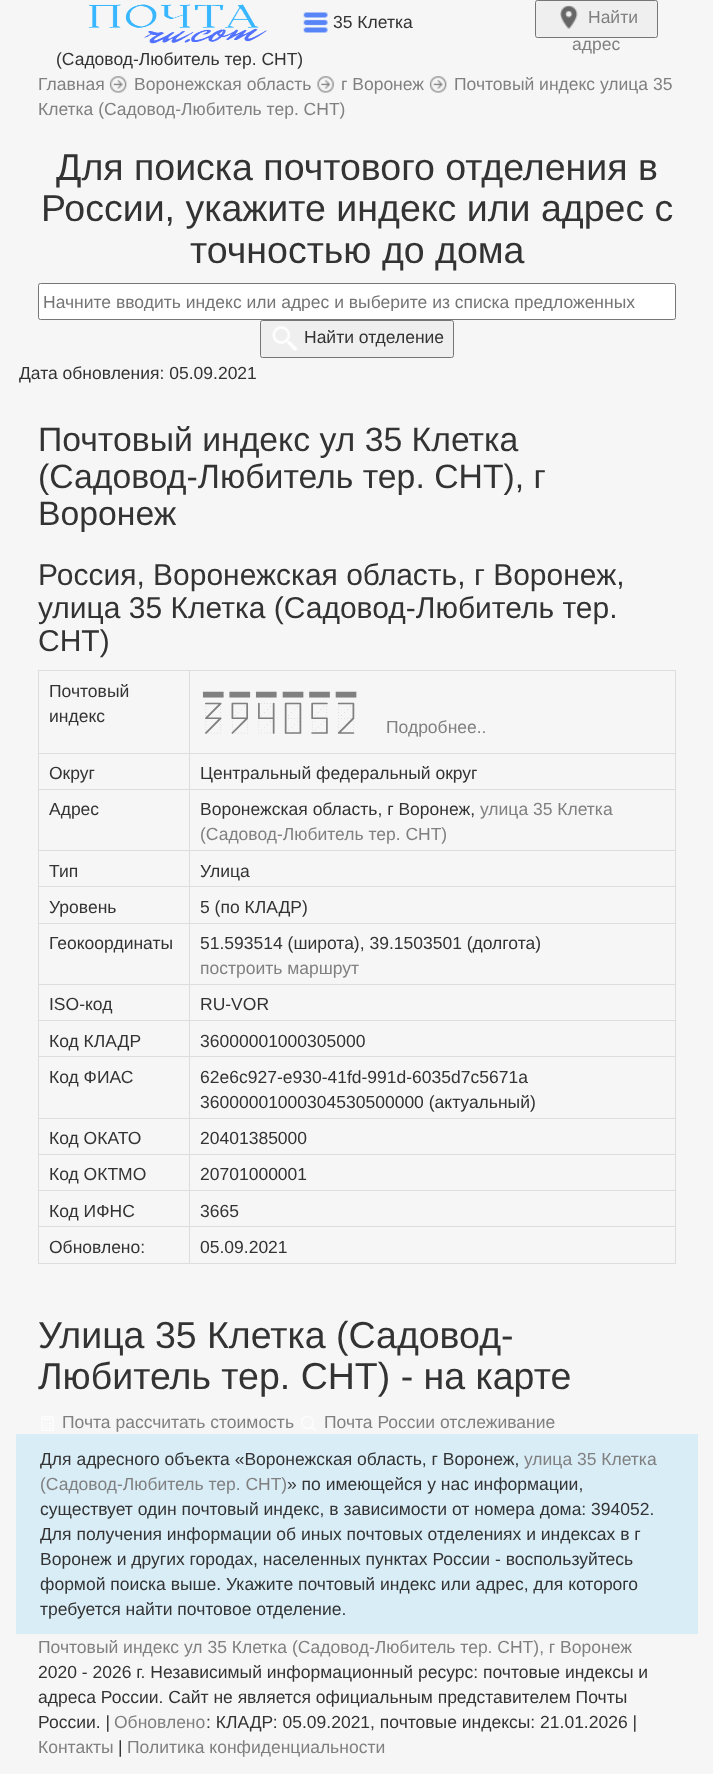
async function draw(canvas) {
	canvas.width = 713;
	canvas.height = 1774;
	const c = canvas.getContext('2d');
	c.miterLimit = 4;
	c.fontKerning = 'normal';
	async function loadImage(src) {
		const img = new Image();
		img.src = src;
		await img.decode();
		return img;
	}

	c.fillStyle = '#f6f6f6';
	c.fillRect(0, 0, 713, 1774);
	c.drawImage(await loadImage('img1.png'), 88, 4, 179, 40);
	c.drawImage(await loadImage('img2.png'), 303, 12, 25, 21);
	c.font = '17.5px Liberation Sans';
	c.fillStyle = '#333';
	c.fillText('35 Клетка', 333, 28);
	c.fillText('(Садовод-Любитель тер. СНТ)', 56, 65);
	c.fillStyle = '#efefef';
	c.beginPath();
	c.roundRect(535.5, 0.5, 122, 37, 2);
	c.fill();
	c.strokeStyle = '#767676';
	c.stroke();
	c.drawImage(await loadImage('img3.png'), 560, 5, 18, 24);
	c.fillStyle = '#808080';
	for (const [text, x, y] of [
		['Найти', 588, 23],
		['адрес', 572, 50],
		['Главная', 38, 90],
	]) {
		c.fillText(text, x, y);
	}
	c.drawImage(await loadImage('img4.png'), 109, 76, 18, 17);
	c.fillText('Воронежская область', 134, 90);
	c.drawImage(await loadImage('img5.png'), 317, 76, 17, 17);
	c.fillText('г Воронеж', 341, 90);
	c.drawImage(await loadImage('img6.png'), 429, 76, 18, 17);
	c.fillText('Почтовый индекс улица 35', 454, 90);
	c.fillText('Клетка (Садовод-Любитель тер. СНТ)', 38, 115);
	c.font = '37.5px Liberation Sans';
	c.fillStyle = '#333';
	for (const [text, x, y] of [
		['Для поиска почтового отделения в', 56, 180],
		['России, укажите индекс или адрес с', 41, 221],
		['точностью до дома', 190, 263],
	]) {
		c.fillText(text, x, y);
	}
	c.fillStyle = '#fff';
	c.beginPath();
	c.roundRect(38.5, 283.5, 637, 36, 2);
	c.fill();
	c.stroke();
	c.save();
	c.beginPath();
	c.rect(43, 291, 628, 20);
	c.clip();
	c.font = '17.5px Liberation Sans';
	c.fillStyle = '#757575';
	c.fillText('Начните вводить индекс или адрес и выберите из списка предложенных', 43, 308);
	c.restore();
	c.fillStyle = '#efefef';
	c.beginPath();
	c.roundRect(260.5, 320.5, 193, 37, 2);
	c.fill();
	c.stroke();
	c.drawImage(await loadImage('img7.png'), 272, 326, 26, 25);
	c.font = '17.5px Liberation Sans';
	c.fillStyle = '#333';
	c.fillText('Найти отделение', 304, 343);
	c.fillText('Дата обновления: 05.09.2021', 19, 379);
	c.font = '33.75px Liberation Sans';
	for (const [text, x, y] of [
		['Почтовый индекс ул 35 Клетка', 38, 451],
		['(Садовод-Любитель тер. СНТ), г', 38, 488],
		['Воронеж', 38, 525],
	]) {
		c.fillText(text, x, y);
	}
	c.font = '30px Liberation Sans';
	for (const [text, x, y] of [
		['Россия, Воронежская область, г Воронеж,', 38, 585],
		['улица 35 Клетка (Садовод-Любитель тер.', 38, 618],
		['СНТ)', 38, 651],
	]) {
		c.fillText(text, x, y);
	}
	for (const [x, y, w, h, color] of [
		[38, 670, 638, 1, '#ddd'],
		[675, 670, 1, 594, '#ddd'],
		[38, 1263, 638, 1, '#ddd'],
		[38, 670, 1, 594, '#ddd'],
	]) {
		c.fillStyle = color;
		c.fillRect(x, y, w, h);
	}
	c.font = '17.5px Liberation Sans';
	c.fillStyle = '#333';
	c.fillText('Почтовый', 49, 697);
	c.fillText('индекс', 49, 722);
	for (const [x, y, w, h, color] of [
		[189, 753, 487, 1, '#ddd'],
		[189, 789, 487, 1, '#ddd'],
		[189, 850, 487, 1, '#ddd'],
		[189, 886, 487, 1, '#ddd'],
		[189, 923, 487, 1, '#ddd'],
		[189, 984, 487, 1, '#ddd'],
		[189, 1020, 487, 1, '#ddd'],
		[189, 1056, 487, 1, '#ddd'],
		[189, 1118, 487, 1, '#ddd'],
		[189, 1154, 487, 1, '#ddd'],
		[189, 1190, 487, 1, '#ddd'],
		[189, 1226, 487, 1, '#ddd'],
		[189, 1226, 1, 38, '#ddd'],
		[38, 1226, 152, 1, '#ddd'],
		[189, 1190, 1, 38, '#ddd'],
		[38, 1190, 152, 1, '#ddd'],
		[189, 1154, 1, 37, '#ddd'],
		[38, 1154, 152, 1, '#ddd'],
		[189, 1118, 1, 37, '#ddd'],
		[38, 1118, 152, 1, '#ddd'],
		[189, 1056, 1, 63, '#ddd'],
		[38, 1056, 152, 1, '#ddd'],
		[189, 1020, 1, 38, '#ddd'],
		[38, 1020, 152, 1, '#ddd'],
		[189, 984, 1, 37, '#ddd'],
		[38, 984, 152, 1, '#ddd'],
		[189, 923, 1, 62, '#ddd'],
		[38, 923, 152, 1, '#ddd'],
		[189, 886, 1, 38, '#ddd'],
		[38, 886, 152, 1, '#ddd'],
		[189, 850, 1, 38, '#ddd'],
		[38, 850, 152, 1, '#ddd'],
		[189, 789, 1, 62, '#ddd'],
		[38, 789, 152, 1, '#ddd'],
		[189, 753, 1, 37, '#ddd'],
		[38, 753, 152, 1, '#ddd'],
		[189, 670, 1, 84, '#ddd'],
	]) {
		c.fillStyle = color;
		c.fillRect(x, y, w, h);
	}
	c.font = '50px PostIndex';
	c.fillStyle = '#808080';
	c.fillText('394052', 200, 733);
	c.font = '17.5px Liberation Sans';
	c.fillText('Подробнее..', 386, 733);
	c.fillStyle = '#333';
	for (const [text, x, y] of [
		['Округ', 49, 779],
		['Центральный федеральный округ', 200, 779],
		['Адрес', 49, 815],
		['Воронежская область, г Воронеж,', 200, 815],
	]) {
		c.fillText(text, x, y);
	}
	c.fillStyle = '#808080';
	c.fillText('улица 35 Клетка', 480, 815);
	c.fillText('(Садовод-Любитель тер. СНТ)', 200, 840);
	c.fillStyle = '#333';
	for (const [text, x, y] of [
		['Тип', 49, 877],
		['Улица', 200, 877],
		['Уровень', 49, 913],
		['5 (по КЛАДР)', 200, 913],
		['Геокоординаты', 49, 949],
		['51.593514 (широта), 39.1503501 (долгота)', 200, 949],
	]) {
		c.fillText(text, x, y);
	}
	c.fillStyle = '#808080';
	c.fillText('построить маршрут', 200, 974);
	c.fillStyle = '#333';
	for (const [text, x, y] of [
		['ISO-код', 49, 1010],
		['RU-VOR', 200, 1010],
		['Код КЛАДР', 49, 1047],
		['36000001000305000', 200, 1047],
		['Код ФИАС', 49, 1083],
		['62e6c927-e930-41fd-991d-6035d7c5671a', 200, 1083],
		['36000001000304530500000 (актуальный)', 200, 1108],
		['Код ОКАТО', 49, 1144],
		['20401385000', 200, 1144],
		['Код ОКТМО', 49, 1180],
		['20701000001', 200, 1180],
		['Код ИФНС', 49, 1217],
		['3665', 200, 1217],
		['Обновлено:', 49, 1253],
		['05.09.2021', 200, 1253],
	]) {
		c.fillText(text, x, y);
	}
	c.font = '37.5px Liberation Sans';
	c.fillText('Улица 35 Клетка (Садовод-', 38, 1348);
	c.fillText('Любитель тер. СНТ) - на карте', 38, 1389);
	c.drawImage(await loadImage('img8.png'), 41, 1416, 13, 15);
	c.font = '17.5px Liberation Sans';
	c.fillStyle = '#808080';
	c.fillText('Почта рассчитать стоимость', 62, 1428);
	c.drawImage(await loadImage('img9.png'), 301, 1416, 15, 15);
	c.fillText('Почта России отслеживание', 324, 1428);
	c.fillStyle = '#d9edf7';
	c.fillRect(16, 1434, 682, 200);
	c.fillStyle = '#333';
	c.fillText('Для адресного объекта «Воронежская область, г Воронеж,', 40, 1465);
	c.fillStyle = '#808080';
	c.fillText('улица 35 Клетка', 524, 1465);
	c.fillText('(Садовод-Любитель тер. СНТ)', 40, 1490);
	c.fillStyle = '#333';
	for (const [text, x, y] of [
		['» по имеющейся у нас информации,', 287, 1490],
		['существует один почтовый индекс, в зависимости от номера дома: 394052.', 40, 1515],
		['Для получения информации об иных почтовых отделениях и индексах в г', 40, 1540],
		['Воронеж и других городах, населенных пунктах России - воспользуйтесь', 40, 1565],
		['формой поиска выше. Укажите почтовый индекс или адрес, для которого', 40, 1590],
		['требуется найти почтовое отделение.', 40, 1615],
	]) {
		c.fillText(text, x, y);
	}
	c.fillStyle = '#808080';
	c.fillText('Почтовый индекс ул 35 Клетка (Садовод-Любитель тер. СНТ), г Воронеж', 38, 1653);
	c.fillStyle = '#333';
	for (const [text, x, y] of [
		['2020 - 2026 г. Независимый информационный ресурс: почтовые индексы и', 38, 1678],
		['адреса России. Сайт не является официальным представителем Почты', 38, 1703],
		['России. |', 38, 1728],
	]) {
		c.fillText(text, x, y);
	}
	c.fillStyle = '#808080';
	c.fillText('Обновлено', 114, 1728);
	c.fillStyle = '#333';
	c.fillText(': КЛАДР: 05.09.2021, почтовые индексы: 21.01.2026 |', 206, 1728);
	c.fillStyle = '#808080';
	c.fillText('Контакты', 38, 1753);
	c.fillStyle = '#333';
	c.fillText('|', 118, 1753);
	c.fillStyle = '#808080';
	c.fillText('Политика конфиденциальности', 127, 1753);
}

draw(document.querySelector('canvas'));
